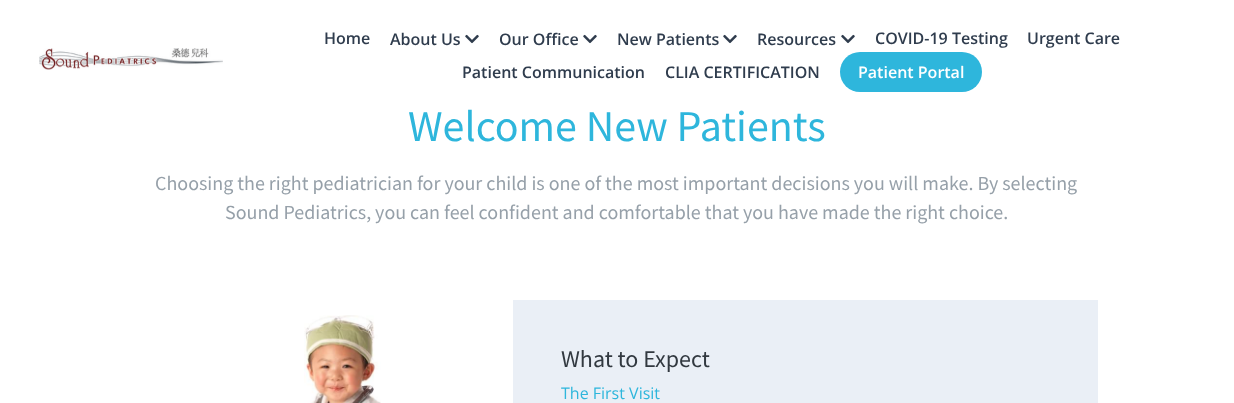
async function draw(canvas) {
	canvas.width = 1234;
	canvas.height = 403;
	const c = canvas.getContext('2d');
	c.miterLimit = 4;
	c.fontKerning = 'normal';
	async function loadImage(src) {
		const img = new Image();
		img.src = src;
		await img.decode();
		return img;
	}

	c.fillStyle = '#fff';
	c.fillRect(0, 0, 1234, 403);
	c.drawImage(await loadImage('img1.png'), 39, 48, 184, 22);
	c.font = '600 16px Open Sans';
	c.fillStyle = '#2f3c4d';
	c.fillText('Home', 324, 44);
	c.fillText('About Us', 390, 45);
	c.drawImage(await loadImage('img2.png'), 465, 34, 14, 10);
	c.fillText('Our Office', 499, 45);
	c.drawImage(await loadImage('img2.png'), 583, 34, 14, 10);
	c.fillText('New Patients', 617, 45);
	c.drawImage(await loadImage('img2.png'), 723, 34, 14, 10);
	c.fillText('Resources', 757, 45);
	c.drawImage(await loadImage('img2.png'), 841, 34, 14, 10);
	for (const [text, x, y] of [
		['COVID-19 Testing', 875, 44],
		['Urgent Care', 1027, 44],
		['Patient Communication', 462, 78],
		['CLIA CERTIFICATION', 665, 78],
	]) {
		c.fillText(text, x, y);
	}
	c.fillStyle = '#2eb6dc';
	c.beginPath();
	c.roundRect(840, 52, 142, 40, 20);
	c.fill();
	c.fillStyle = '#fff';
	c.fillText('Patient Portal', 858, 78);
	c.font = '44px Source Sans Pro';
	c.fillStyle = '#2eb6dc';
	c.fillText('Welcome New Patients', 408, 141);
	c.font = '20px Source Sans Pro';
	c.fillStyle = '#96a0a9';
	c.fillText('Choosing the right pediatrician for your child is one of the most important decisions you will make. By selecting', 155, 190);
	c.fillText('Sound Pediatrics, you can feel confident and comfortable that you have made the right choice.', 225, 219);
	c.drawImage(await loadImage('img3.png'), 304, 315, 77, 88);
	c.fillStyle = '#eaeff6';
	c.fillRect(513, 300, 585, 103);
	c.font = '24px Source Sans Pro';
	c.fillStyle = '#323940';
	c.fillText('What to Expect', 561, 367);
	c.font = '16px Open Sans';
	c.fillStyle = '#2eb6dc';
	c.fillText('The First Visit', 561, 399);
}

draw(document.querySelector('canvas'));
